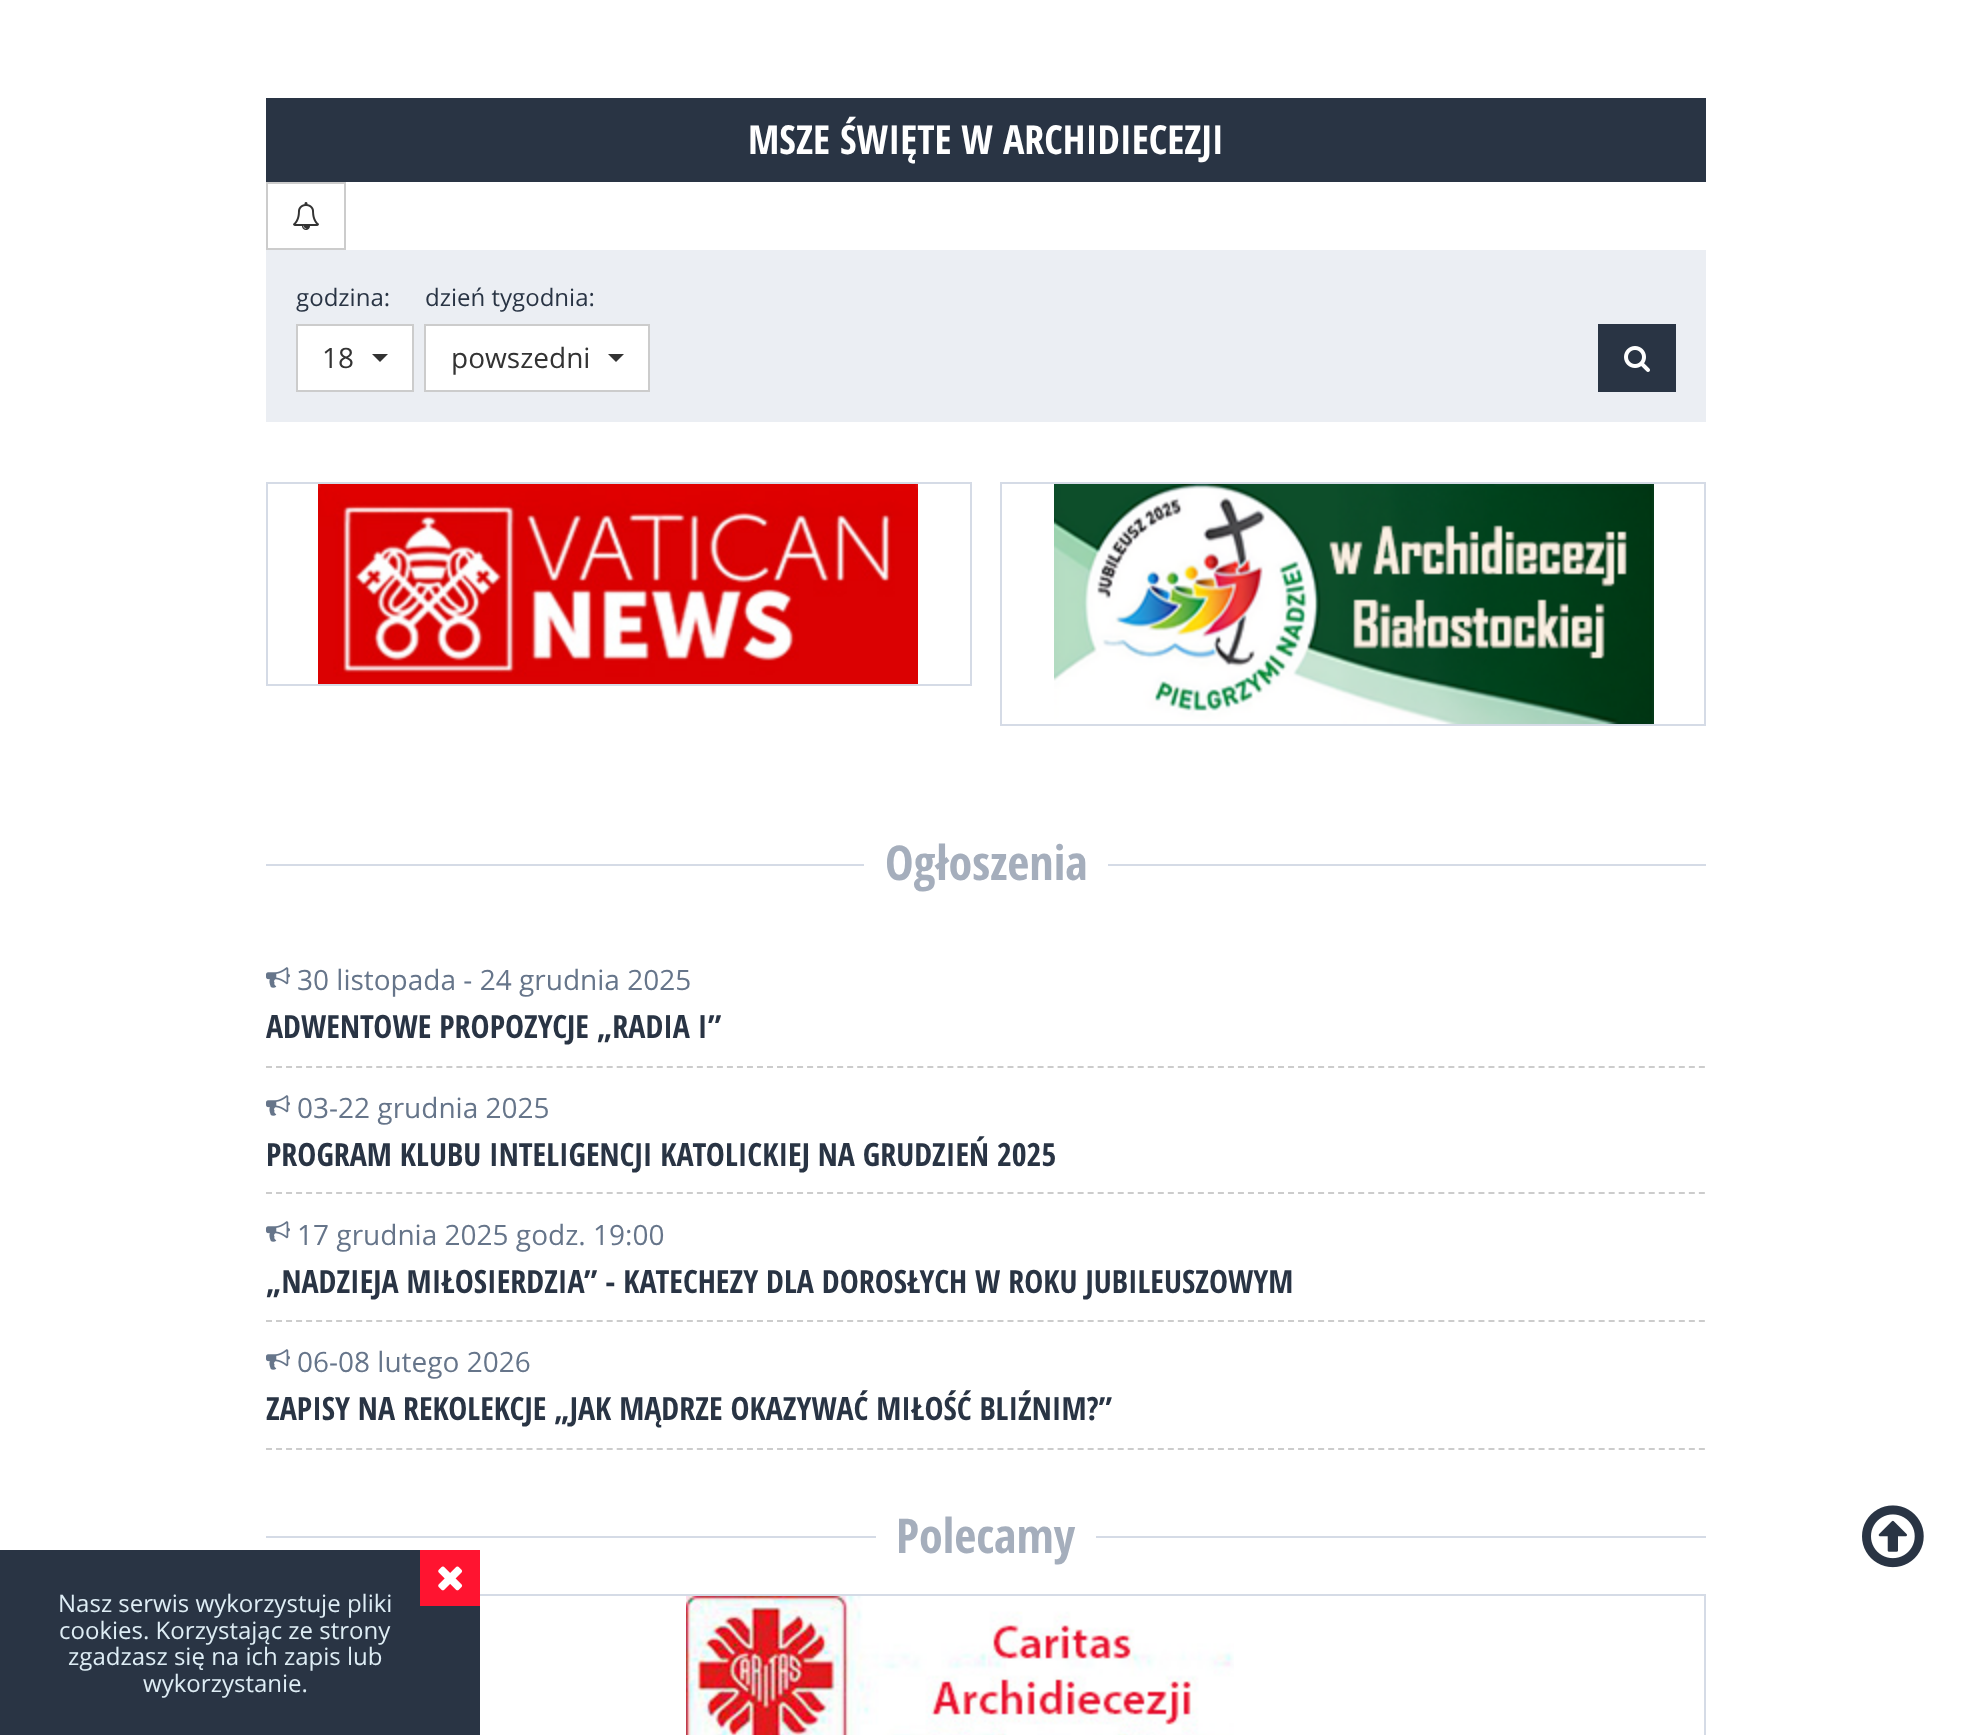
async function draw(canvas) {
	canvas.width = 1972;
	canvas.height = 1735;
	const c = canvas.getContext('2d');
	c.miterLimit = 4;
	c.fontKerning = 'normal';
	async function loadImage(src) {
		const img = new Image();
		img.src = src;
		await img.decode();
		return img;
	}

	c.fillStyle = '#fff';
	c.fillRect(0, 0, 1972, 1735);
	c.fillStyle = '#293444';
	c.fillRect(266, 98, 1440, 84);
	c.font = 'bold 40px Open Sans Condensed';
	c.fillStyle = '#fff';
	c.fillText('MSZE ŚWIĘTE W ARCHIDIECEZJI', 748, 154);
	c.strokeStyle = '#ccc';
	c.lineWidth = 2;
	c.strokeRect(267, 183, 78, 66);
	c.drawImage(await loadImage('img1.png'), 293, 202, 26, 28);
	c.fillStyle = '#ebeef3';
	c.fillRect(266, 250, 1440, 172);
	c.font = '24px Open Sans';
	c.fillStyle = '#293444';
	c.fillText('godzina:', 296, 306);
	c.fillStyle = '#fff';
	c.beginPath();
	c.rect(297, 325, 116, 66);
	c.fill();
	c.stroke();
	c.font = '28px Open Sans';
	c.fillStyle = '#333';
	c.fillText('18', 322, 368);
	c.beginPath();
	c.moveTo(372, 354);
	c.lineTo(388, 354);
	c.lineTo(380, 362);
	c.closePath();
	c.fill();
	c.font = '24px Open Sans';
	c.fillStyle = '#293444';
	c.fillText('dzień tygodnia:', 425, 306);
	c.fillStyle = '#fff';
	c.beginPath();
	c.rect(425, 325, 224, 66);
	c.fill();
	c.stroke();
	c.font = '28px Open Sans';
	c.fillStyle = '#333';
	c.fillText('powszedni', 451, 368);
	c.beginPath();
	c.moveTo(608, 354);
	c.lineTo(624, 354);
	c.lineTo(616, 362);
	c.closePath();
	c.fill();
	c.fillStyle = '#293444';
	c.fillRect(1598, 324, 78, 68);
	c.drawImage(await loadImage('img2.png'), 1624, 346, 26, 26);
	c.strokeStyle = '#d5dbe6';
	c.strokeRect(267, 483, 704, 202);
	c.drawImage(await loadImage('img3.png'), 318, 484, 600, 200);
	c.strokeRect(1001, 483, 704, 242);
	c.drawImage(await loadImage('img4.png'), 1054, 484, 600, 240);
	c.fillStyle = '#d5dbe6';
	c.fillRect(266, 864, 1440, 2);
	c.fillStyle = '#fff';
	c.fillRect(864, 864, 244, 2);
	c.font = 'bold 48px Open Sans Condensed';
	c.fillStyle = '#a5aebc';
	c.fillText('Ogłoszenia', 885, 880);
	c.beginPath();
	c.moveTo(266, 1067);
	c.lineTo(1706, 1067);
	c.strokeStyle = '#ccc';
	c.setLineDash([6, 4.02]);
	c.stroke();
	c.drawImage(await loadImage('img5.png'), 266, 967, 24, 21);
	c.font = '28px Open Sans';
	c.fillStyle = '#66758a';
	c.fillText('30 listopada - 24 grudnia 2025', 297, 990);
	c.font = 'bold 32px Open Sans Condensed';
	c.fillStyle = '#293444';
	c.fillText('ADWENTOWE PROPOZYCJE „RADIA I”', 266, 1038);
	c.beginPath();
	c.moveTo(266, 1193);
	c.lineTo(1706, 1193);
	c.stroke();
	c.drawImage(await loadImage('img5.png'), 266, 1095, 24, 21);
	c.font = '28px Open Sans';
	c.fillStyle = '#66758a';
	c.fillText('03-22 grudnia 2025', 297, 1118);
	c.font = 'bold 32px Open Sans Condensed';
	c.fillStyle = '#293444';
	c.fillText('PROGRAM KLUBU INTELIGENCJI KATOLICKIEJ NA GRUDZIEŃ 2025', 266, 1166);
	c.beginPath();
	c.moveTo(266, 1321);
	c.lineTo(1706, 1321);
	c.stroke();
	c.drawImage(await loadImage('img5.png'), 266, 1221, 24, 21);
	c.font = '28px Open Sans';
	c.fillStyle = '#66758a';
	c.fillText('17 grudnia 2025 godz. 19:00', 297, 1245);
	c.font = 'bold 32px Open Sans Condensed';
	c.fillStyle = '#293444';
	c.fillText('„NADZIEJA MIŁOSIERDZIA” - KATECHEZY DLA DOROSŁYCH W ROKU JUBILEUSZOWYM', 266, 1293);
	c.beginPath();
	c.moveTo(266, 1449);
	c.lineTo(1706, 1449);
	c.stroke();
	c.drawImage(await loadImage('img5.png'), 266, 1349, 24, 21);
	c.font = '28px Open Sans';
	c.fillStyle = '#66758a';
	c.fillText('06-08 lutego 2026', 297, 1372);
	c.font = 'bold 32px Open Sans Condensed';
	c.fillStyle = '#293444';
	c.fillText('ZAPISY NA REKOLEKCJE „JAK MĄDRZE OKAZYWAĆ MIŁOŚĆ BLIŹNIM?”', 266, 1420);
	c.fillStyle = '#d5dbe6';
	c.fillRect(266, 1536, 1440, 2);
	c.fillStyle = '#fff';
	c.fillRect(876, 1536, 220, 2);
	c.font = 'bold 48px Open Sans Condensed';
	c.fillStyle = '#a5aebc';
	c.fillText('Polecamy', 896, 1553);
	c.strokeStyle = '#d5dbe6';
	c.setLineDash([]);
	c.strokeRect(267, 1595, 1438, 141);
	c.drawImage(await loadImage('img6.png'), 686, 1596, 548, 139);
	c.drawImage(await loadImage('img7.png'), 1862, 1505, 62, 63);
	c.fillStyle = '#293444';
	c.fillRect(0, 1550, 480, 185);
	c.font = '24px Open Sans';
	c.fillStyle = '#deedf5';
	c.fillText('Nasz serwis wykorzystuje pliki', 58, 1612);
	c.fillStyle = '#ff1430';
	c.fillRect(420, 1550, 60, 56);
	c.drawImage(await loadImage('img8.png'), 438, 1566, 25, 25);
	c.fillStyle = '#deedf5';
	for (const [text, x, y] of [
		['cookies. Korzystając ze strony', 59, 1639],
		['zgadzasz się na ich zapis lub', 68, 1665],
		['wykorzystanie.', 143, 1692],
	]) {
		c.fillText(text, x, y);
	}
}

draw(document.querySelector('canvas'));
